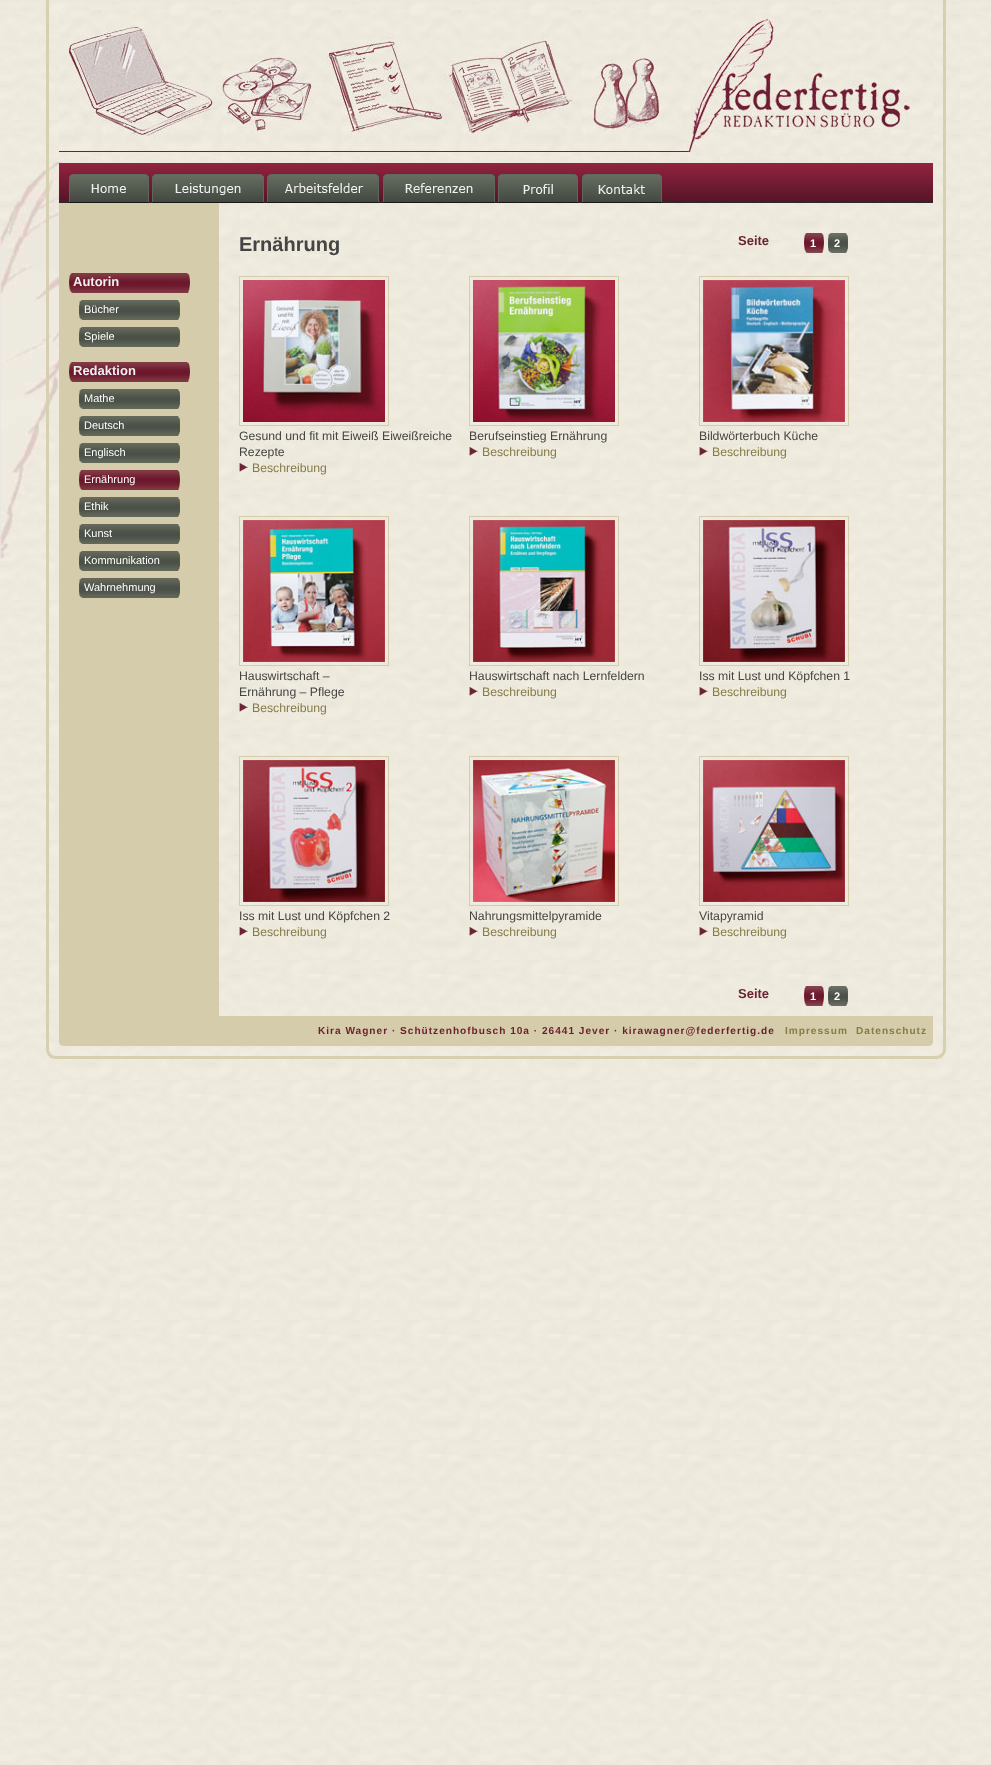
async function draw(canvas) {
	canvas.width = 991;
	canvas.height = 1765;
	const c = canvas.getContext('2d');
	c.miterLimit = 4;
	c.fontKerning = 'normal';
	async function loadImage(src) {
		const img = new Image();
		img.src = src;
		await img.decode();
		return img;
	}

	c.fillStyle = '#ebe9dd';
	c.fillRect(0, 0, 991, 1765);
	c.drawImage(await loadImage('img1.png'), 0, 2, 991, 1763);
	c.drawImage(await loadImage('img2.png'), 0, 161, 67, 634);
	c.fillStyle = '#d6d0b1';
	c.beginPath();
	c.moveTo(46, 0);
	c.lineTo(946, 0);
	c.lineTo(946, 1049);
	c.bezierCurveTo(946, 1055, 942, 1059, 936, 1059);
	c.lineTo(56, 1059);
	c.bezierCurveTo(50, 1059, 46, 1055, 46, 1049);
	c.closePath();
	c.moveTo(49, 0);
	c.lineTo(943, 0);
	c.lineTo(943, 1049);
	c.bezierCurveTo(943, 1053, 940, 1056, 936, 1056);
	c.lineTo(56, 1056);
	c.bezierCurveTo(52, 1056, 49, 1053, 49, 1049);
	c.closePath();
	c.fill('evenodd');
	c.drawImage(await loadImage('img3.png'), 59, 10, 874, 146);
	c.drawImage(await loadImage('img4.png'), 59, 163, 874, 40);
	c.drawImage(await loadImage('img5.png'), 69, 174, 80, 29);
	c.drawImage(await loadImage('img6.png'), 152, 174, 112, 29);
	c.drawImage(await loadImage('img7.png'), 267, 174, 112, 29);
	c.drawImage(await loadImage('img8.png'), 383, 174, 112, 29);
	c.drawImage(await loadImage('img9.png'), 498, 174, 80, 29);
	c.drawImage(await loadImage('img10.png'), 582, 174, 80, 29);
	c.fillStyle = '#d4ccaa';
	c.fillRect(59, 203, 160, 813);
	c.drawImage(await loadImage('img11.png'), 69, 273, 121, 20);
	c.font = 'bold 13px Liberation Sans';
	c.fillStyle = '#efefef';
	c.fillText('Autorin', 73, 286);
	c.drawImage(await loadImage('img12.png'), 79, 300, 101, 20);
	c.font = '11px Liberation Sans';
	c.fillStyle = '#fff';
	c.fillText('Bücher', 84, 313);
	c.drawImage(await loadImage('img12.png'), 79, 327, 101, 20);
	c.fillText('Spiele', 84, 340);
	c.drawImage(await loadImage('img11.png'), 69, 362, 121, 20);
	c.font = 'bold 13px Liberation Sans';
	c.fillStyle = '#efefef';
	c.fillText('Redaktion', 73, 375);
	c.drawImage(await loadImage('img12.png'), 79, 389, 101, 20);
	c.font = '11px Liberation Sans';
	c.fillStyle = '#fff';
	c.fillText('Mathe', 84, 402);
	c.drawImage(await loadImage('img12.png'), 79, 416, 101, 20);
	c.fillText('Deutsch', 84, 429);
	c.drawImage(await loadImage('img12.png'), 79, 443, 101, 20);
	c.fillText('Englisch', 84, 456);
	c.drawImage(await loadImage('img13.png'), 79, 470, 101, 20);
	c.fillText('Ernährung', 84, 483);
	c.drawImage(await loadImage('img12.png'), 79, 497, 101, 20);
	c.fillText('Ethik', 84, 510);
	c.drawImage(await loadImage('img12.png'), 79, 524, 101, 20);
	c.fillText('Kunst', 84, 537);
	c.drawImage(await loadImage('img12.png'), 79, 551, 101, 20);
	c.fillText('Kommunikation', 84, 564);
	c.drawImage(await loadImage('img12.png'), 79, 578, 101, 20);
	c.fillText('Wahrnehmung', 84, 591);
	c.drawImage(await loadImage('img14.png'), 219, 203, 714, 813);
	c.font = 'bold 20px Liberation Sans';
	c.fillStyle = '#444';
	c.fillText('Ernährung', 239, 251);
	c.font = 'bold 13px Liberation Sans';
	c.fillStyle = '#6a2432';
	c.fillText('Seite', 738, 245);
	c.drawImage(await loadImage('img15.png'), 804, 233, 20, 20);
	c.font = 'bold 11px Liberation Sans';
	c.fillStyle = '#fff';
	c.fillText('1', 810, 247);
	c.drawImage(await loadImage('img16.png'), 828, 233, 20, 20);
	c.fillText('2', 834, 247);
	c.strokeStyle = '#d4ccaa';
	c.strokeRect(239.5, 276.5, 149, 149);
	c.drawImage(await loadImage('img17.png'), 243, 280, 142, 142);
	c.font = '12.25px Liberation Sans';
	c.fillStyle = '#444';
	c.fillText('Gesund und fit mit Eiweiß Eiweißreiche', 239, 440);
	c.fillText('Rezepte', 239, 456);
	c.drawImage(await loadImage('img18.png'), 239, 463, 9, 9);
	c.fillStyle = '#887a44';
	c.fillText('Beschreibung', 252, 472);
	c.strokeRect(469.5, 276.5, 149, 149);
	c.drawImage(await loadImage('img19.png'), 473, 280, 142, 142);
	c.fillStyle = '#444';
	c.fillText('Berufseinstieg Ernährung', 469, 440);
	c.drawImage(await loadImage('img20.png'), 469, 447, 9, 9);
	c.fillStyle = '#887a44';
	c.fillText('Beschreibung', 482, 456);
	c.strokeRect(699.5, 276.5, 149, 149);
	c.drawImage(await loadImage('img21.png'), 703, 280, 142, 142);
	c.fillStyle = '#444';
	c.fillText('Bildwörterbuch Küche', 699, 440);
	c.drawImage(await loadImage('img22.png'), 699, 447, 9, 9);
	c.fillStyle = '#887a44';
	c.fillText('Beschreibung', 712, 456);
	c.strokeRect(239.5, 516.5, 149, 149);
	c.drawImage(await loadImage('img23.png'), 243, 520, 142, 142);
	c.fillStyle = '#444';
	c.fillText('Hauswirtschaft –', 239, 680);
	c.fillText('Ernährung – Pflege', 239, 696);
	c.drawImage(await loadImage('img18.png'), 239, 703, 9, 9);
	c.fillStyle = '#887a44';
	c.fillText('Beschreibung', 252, 712);
	c.strokeRect(469.5, 516.5, 149, 149);
	c.drawImage(await loadImage('img24.png'), 473, 520, 142, 142);
	c.fillStyle = '#444';
	c.fillText('Hauswirtschaft nach Lernfeldern', 469, 680);
	c.drawImage(await loadImage('img20.png'), 469, 687, 9, 9);
	c.fillStyle = '#887a44';
	c.fillText('Beschreibung', 482, 696);
	c.strokeRect(699.5, 516.5, 149, 149);
	c.drawImage(await loadImage('img25.png'), 703, 520, 142, 142);
	c.fillStyle = '#444';
	c.fillText('Iss mit Lust und Köpfchen 1', 699, 680);
	c.drawImage(await loadImage('img22.png'), 699, 687, 9, 9);
	c.fillStyle = '#887a44';
	c.fillText('Beschreibung', 712, 696);
	c.strokeRect(239.5, 756.5, 149, 149);
	c.drawImage(await loadImage('img26.png'), 243, 760, 142, 142);
	c.fillStyle = '#444';
	c.fillText('Iss mit Lust und Köpfchen 2', 239, 920);
	c.drawImage(await loadImage('img27.png'), 239, 927, 9, 9);
	c.fillStyle = '#887a44';
	c.fillText('Beschreibung', 252, 936);
	c.strokeRect(469.5, 756.5, 149, 149);
	c.drawImage(await loadImage('img28.png'), 473, 760, 142, 142);
	c.fillStyle = '#444';
	c.fillText('Nahrungsmittelpyramide', 469, 920);
	c.drawImage(await loadImage('img20.png'), 469, 927, 9, 9);
	c.fillStyle = '#887a44';
	c.fillText('Beschreibung', 482, 936);
	c.strokeRect(699.5, 756.5, 149, 149);
	c.drawImage(await loadImage('img29.png'), 703, 760, 142, 142);
	c.fillStyle = '#444';
	c.fillText('Vitapyramid', 699, 920);
	c.drawImage(await loadImage('img22.png'), 699, 927, 9, 9);
	c.fillStyle = '#887a44';
	c.fillText('Beschreibung', 712, 936);
	c.font = 'bold 13px Liberation Sans';
	c.fillStyle = '#6a2432';
	c.fillText('Seite', 738, 998);
	c.drawImage(await loadImage('img15.png'), 804, 986, 20, 20);
	c.font = 'bold 11px Liberation Sans';
	c.fillStyle = '#fff';
	c.fillText('1', 810, 1000);
	c.drawImage(await loadImage('img16.png'), 828, 986, 20, 20);
	c.fillText('2', 834, 1000);
	c.fillStyle = '#d4ccaa';
	c.beginPath();
	c.roundRect(59, 1016, 874, 30, [0, 0, 5, 5]);
	c.fill();
	c.beginPath();
	c.moveTo(59, 1016);
	c.lineTo(933, 1016);
	c.lineTo(933, 1041);
	c.bezierCurveTo(933, 1044, 931, 1046, 928, 1046);
	c.lineTo(64, 1046);
	c.bezierCurveTo(61, 1046, 59, 1044, 59, 1041);
	c.closePath();
	c.moveTo(60, 1016);
	c.lineTo(932, 1016);
	c.lineTo(932, 1041);
	c.bezierCurveTo(932, 1043, 930, 1045, 928, 1045);
	c.lineTo(64, 1045);
	c.bezierCurveTo(62, 1045, 60, 1043, 60, 1041);
	c.closePath();
	c.fill('evenodd');
	c.letterSpacing = '1px';
	c.font = 'bold 10.1px Liberation Sans';
	c.fillStyle = '#6e1d2e';
	c.fillText('Kira Wagner · Schützenhofbusch 10a · 26441 Jever · kirawagner@federfertig.de', 318, 1034);
	c.fillStyle = '#887a44';
	c.fillText('Impressum', 785, 1034);
	c.fillText('Datenschutz', 856, 1034);
}

draw(document.querySelector('canvas'));
